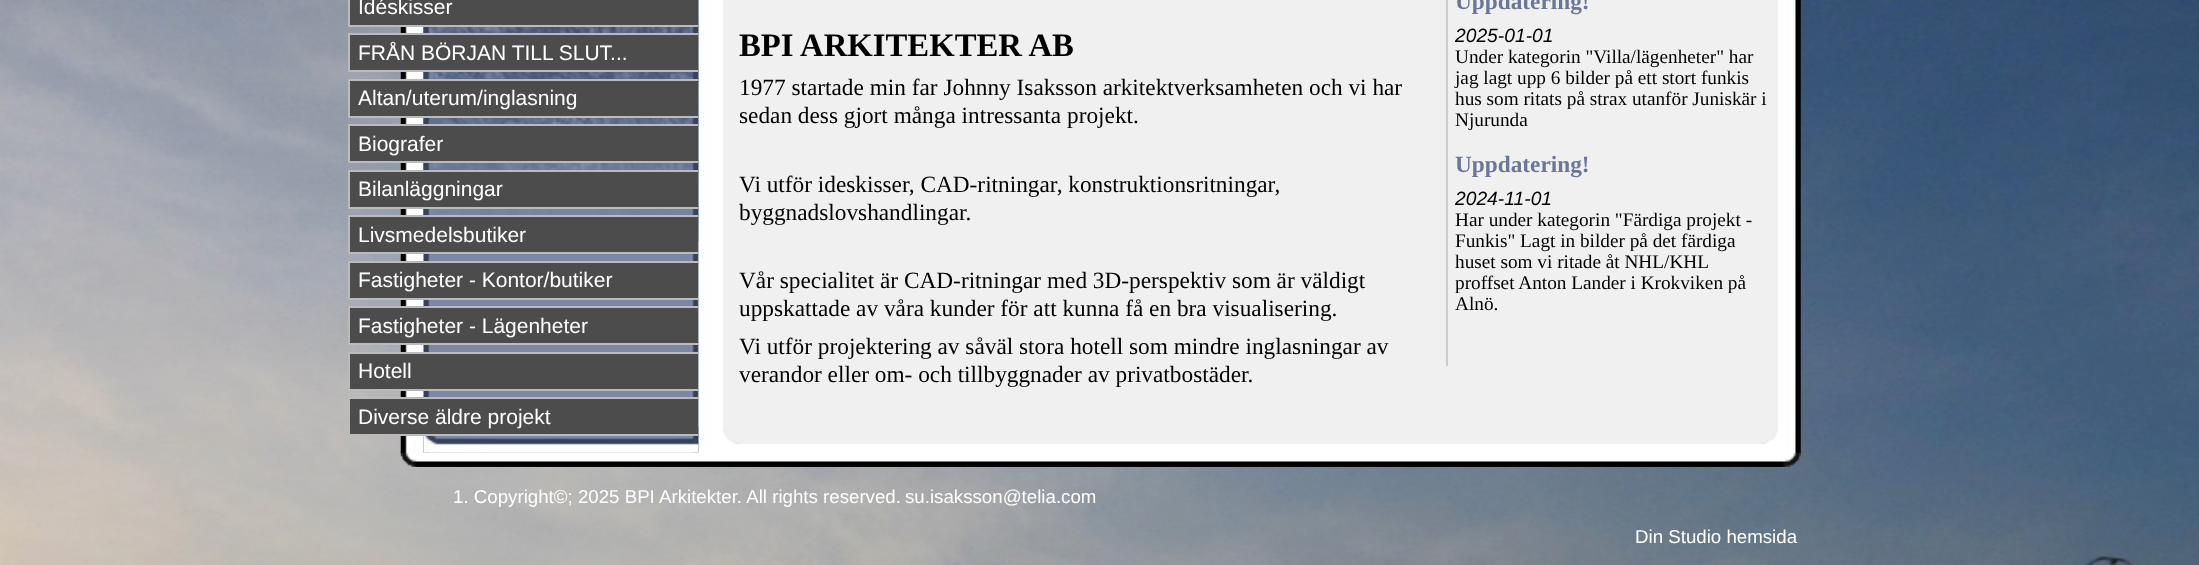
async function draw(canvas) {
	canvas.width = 2199;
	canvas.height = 565;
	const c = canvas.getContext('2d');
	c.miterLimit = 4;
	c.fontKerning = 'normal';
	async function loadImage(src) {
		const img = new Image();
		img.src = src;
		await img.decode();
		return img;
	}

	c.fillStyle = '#fff';
	c.fillRect(0, 0, 2199, 565);
	c.drawImage(await loadImage('img1.png'), 0, 0, 2199, 565);
	c.drawImage(await loadImage('img7.png'), 400, 451, 1385, 16);
	c.drawImage(await loadImage('img8.png'), 416, 451, 1385, 16);
	c.drawImage(await loadImage('img2.png'), 400, 0, 1401, 453);
	c.drawImage(await loadImage('img3.png'), 423, 0, 276, 241);
	for (const [x, y, w, h, color] of [
		[350, 0, 348, 25, '#4c4c4c'],
		[348, 25, 350, 2, '#bbb'],
		[348, 0, 2, 26, '#bbb'],
	]) {
		c.fillStyle = color;
		c.fillRect(x, y, w, h);
	}
	c.font = '21px Liberation Sans';
	c.fillStyle = '#fff';
	c.fillText('Idéskisser', 358, 14);
	for (const [x, y, w, h, color] of [
		[350, 35, 348, 35, '#4c4c4c'],
		[348, 33, 350, 2, '#bbb'],
		[348, 70, 350, 2, '#bbb'],
		[348, 33, 2, 39, '#bbb'],
	]) {
		c.fillStyle = color;
		c.fillRect(x, y, w, h);
	}
	c.fillStyle = '#fff';
	c.fillText('FRÅN BÖRJAN TILL SLUT...', 358, 60);
	for (const [x, y, w, h, color] of [
		[350, 81, 348, 35, '#4c4c4c'],
		[348, 79, 350, 2, '#bbb'],
		[348, 116, 350, 2, '#bbb'],
		[348, 79, 2, 38, '#bbb'],
	]) {
		c.fillStyle = color;
		c.fillRect(x, y, w, h);
	}
	c.fillStyle = '#fff';
	c.fillText('Altan/uterum/inglasning', 358, 105);
	for (const [x, y, w, h, color] of [
		[350, 126, 348, 35, '#4c4c4c'],
		[348, 124, 350, 2, '#bbb'],
		[348, 161, 350, 2, '#bbb'],
		[348, 124, 2, 39, '#bbb'],
	]) {
		c.fillStyle = color;
		c.fillRect(x, y, w, h);
	}
	c.fillStyle = '#fff';
	c.fillText('Biografer', 358, 151);
	for (const [x, y, w, h, color] of [
		[350, 172, 348, 35, '#4c4c4c'],
		[348, 170, 350, 2, '#bbb'],
		[348, 207, 350, 2, '#bbb'],
		[348, 170, 2, 38, '#bbb'],
	]) {
		c.fillStyle = color;
		c.fillRect(x, y, w, h);
	}
	c.fillStyle = '#fff';
	c.fillText('Bilanläggningar', 358, 196);
	for (const [x, y, w, h, color] of [
		[350, 217, 348, 35, '#4c4c4c'],
		[348, 215, 350, 2, '#bbb'],
		[348, 252, 350, 2, '#bbb'],
		[348, 215, 2, 39, '#bbb'],
	]) {
		c.fillStyle = color;
		c.fillRect(x, y, w, h);
	}
	c.fillStyle = '#fff';
	c.fillText('Livsmedelsbutiker', 358, 242);
	for (const [x, y, w, h, color] of [
		[350, 263, 348, 35, '#4c4c4c'],
		[348, 261, 350, 2, '#bbb'],
		[348, 298, 350, 2, '#bbb'],
		[348, 261, 2, 38, '#bbb'],
	]) {
		c.fillStyle = color;
		c.fillRect(x, y, w, h);
	}
	c.fillStyle = '#fff';
	c.fillText('Fastigheter - Kontor/butiker', 358, 287);
	for (const [x, y, w, h, color] of [
		[350, 308, 348, 35, '#4c4c4c'],
		[348, 306, 350, 2, '#bbb'],
		[348, 343, 350, 2, '#bbb'],
		[348, 306, 2, 39, '#bbb'],
	]) {
		c.fillStyle = color;
		c.fillRect(x, y, w, h);
	}
	c.fillStyle = '#fff';
	c.fillText('Fastigheter - Lägenheter', 358, 333);
	for (const [x, y, w, h, color] of [
		[350, 354, 348, 35, '#4c4c4c'],
		[348, 352, 350, 2, '#bbb'],
		[348, 389, 350, 2, '#bbb'],
		[348, 352, 2, 38, '#bbb'],
	]) {
		c.fillStyle = color;
		c.fillRect(x, y, w, h);
	}
	c.fillStyle = '#fff';
	c.fillText('Hotell', 358, 378);
	c.drawImage(await loadImage('img6.png'), 423, 426, 276, 27);
	for (const [x, y, w, h, color] of [
		[350, 399, 348, 35, '#4c4c4c'],
		[348, 397, 350, 2, '#bbb'],
		[348, 434, 350, 2, '#bbb'],
		[348, 397, 2, 39, '#bbb'],
	]) {
		c.fillStyle = color;
		c.fillRect(x, y, w, h);
	}
	c.fillStyle = '#fff';
	c.fillText('Diverse äldre projekt', 358, 424);
	c.fillStyle = '#f0f0f0';
	c.fillRect(723, 0, 1055, 431);
	c.font = 'bold 32.75px Liberation Serif';
	c.fillStyle = '#000';
	c.fillText('BPI ARKITEKTER AB', 739, 56);
	c.font = '23.3px Liberation Serif';
	for (const [text, x, y] of [
		['1977 startade min far Johnny Isaksson arkitektverksamheten och vi har', 739, 95],
		['sedan dess gjort många intressanta projekt.', 739, 123],
		['Vi utför ideskisser, CAD-ritningar, konstruktionsritningar,', 739, 192],
		['byggnadslovshandlingar.', 739, 220],
		['Vår specialitet är CAD-ritningar med 3D-perspektiv som är väldigt', 739, 288],
		['uppskattade av våra kunder för att kunna få en bra visualisering.', 739, 316],
		['Vi utför projektering av såväl stora hotell som mindre inglasningar av', 739, 354],
		['verandor eller om- och tillbyggnader av privatbostäder.', 739, 382],
	]) {
		c.fillText(text, x, y);
	}
	c.fillStyle = '#ccc';
	c.fillRect(1446, 0, 2, 366);
	c.font = 'bold 23.3px Liberation Serif';
	c.fillStyle = '#6a7797';
	c.fillText('Uppdatering!', 1455, 9);
	c.font = 'italic 19.25px Liberation Sans';
	c.fillStyle = '#000';
	c.fillText('2025-01-01', 1455, 42);
	c.font = '19.25px Liberation Serif';
	for (const [text, x, y] of [
		['Under kategorin "Villa/lägenheter" har', 1455, 63],
		['jag lagt upp 6 bilder på ett stort funkis', 1455, 84],
		['hus som ritats på strax utanför Juniskär i', 1455, 105],
		['Njurunda', 1455, 126],
	]) {
		c.fillText(text, x, y);
	}
	c.font = 'bold 23.3px Liberation Serif';
	c.fillStyle = '#6a7797';
	c.fillText('Uppdatering!', 1455, 172);
	c.font = 'italic 19.25px Liberation Sans';
	c.fillStyle = '#000';
	c.fillText('2024-11-01', 1455, 205);
	c.font = '19.25px Liberation Serif';
	for (const [text, x, y] of [
		['Har under kategorin "Färdiga projekt -', 1455, 226],
		['Funkis" Lagt in bilder på det färdiga', 1455, 247],
		['huset som vi ritade åt NHL/KHL', 1455, 268],
		['proffset Anton Lander i Krokviken på', 1455, 289],
		['Alnö.', 1455, 310],
	]) {
		c.fillText(text, x, y);
	}
	c.drawImage(await loadImage('img4.png'), 722, 429, 1041, 15);
	c.drawImage(await loadImage('img5.png'), 1762, 431, 16, 13);
	c.font = '18.7px Liberation Sans';
	c.fillStyle = '#fff';
	for (const [text, x, y] of [
		['1. Copyright©; 2025 BPI Arkitekter. All rights reserved.', 453, 503],
		['su.isaksson@telia.com', 905, 503],
		['Din Studio hemsida', 1635, 543],
	]) {
		c.fillText(text, x, y);
	}
}

draw(document.querySelector('canvas'));
